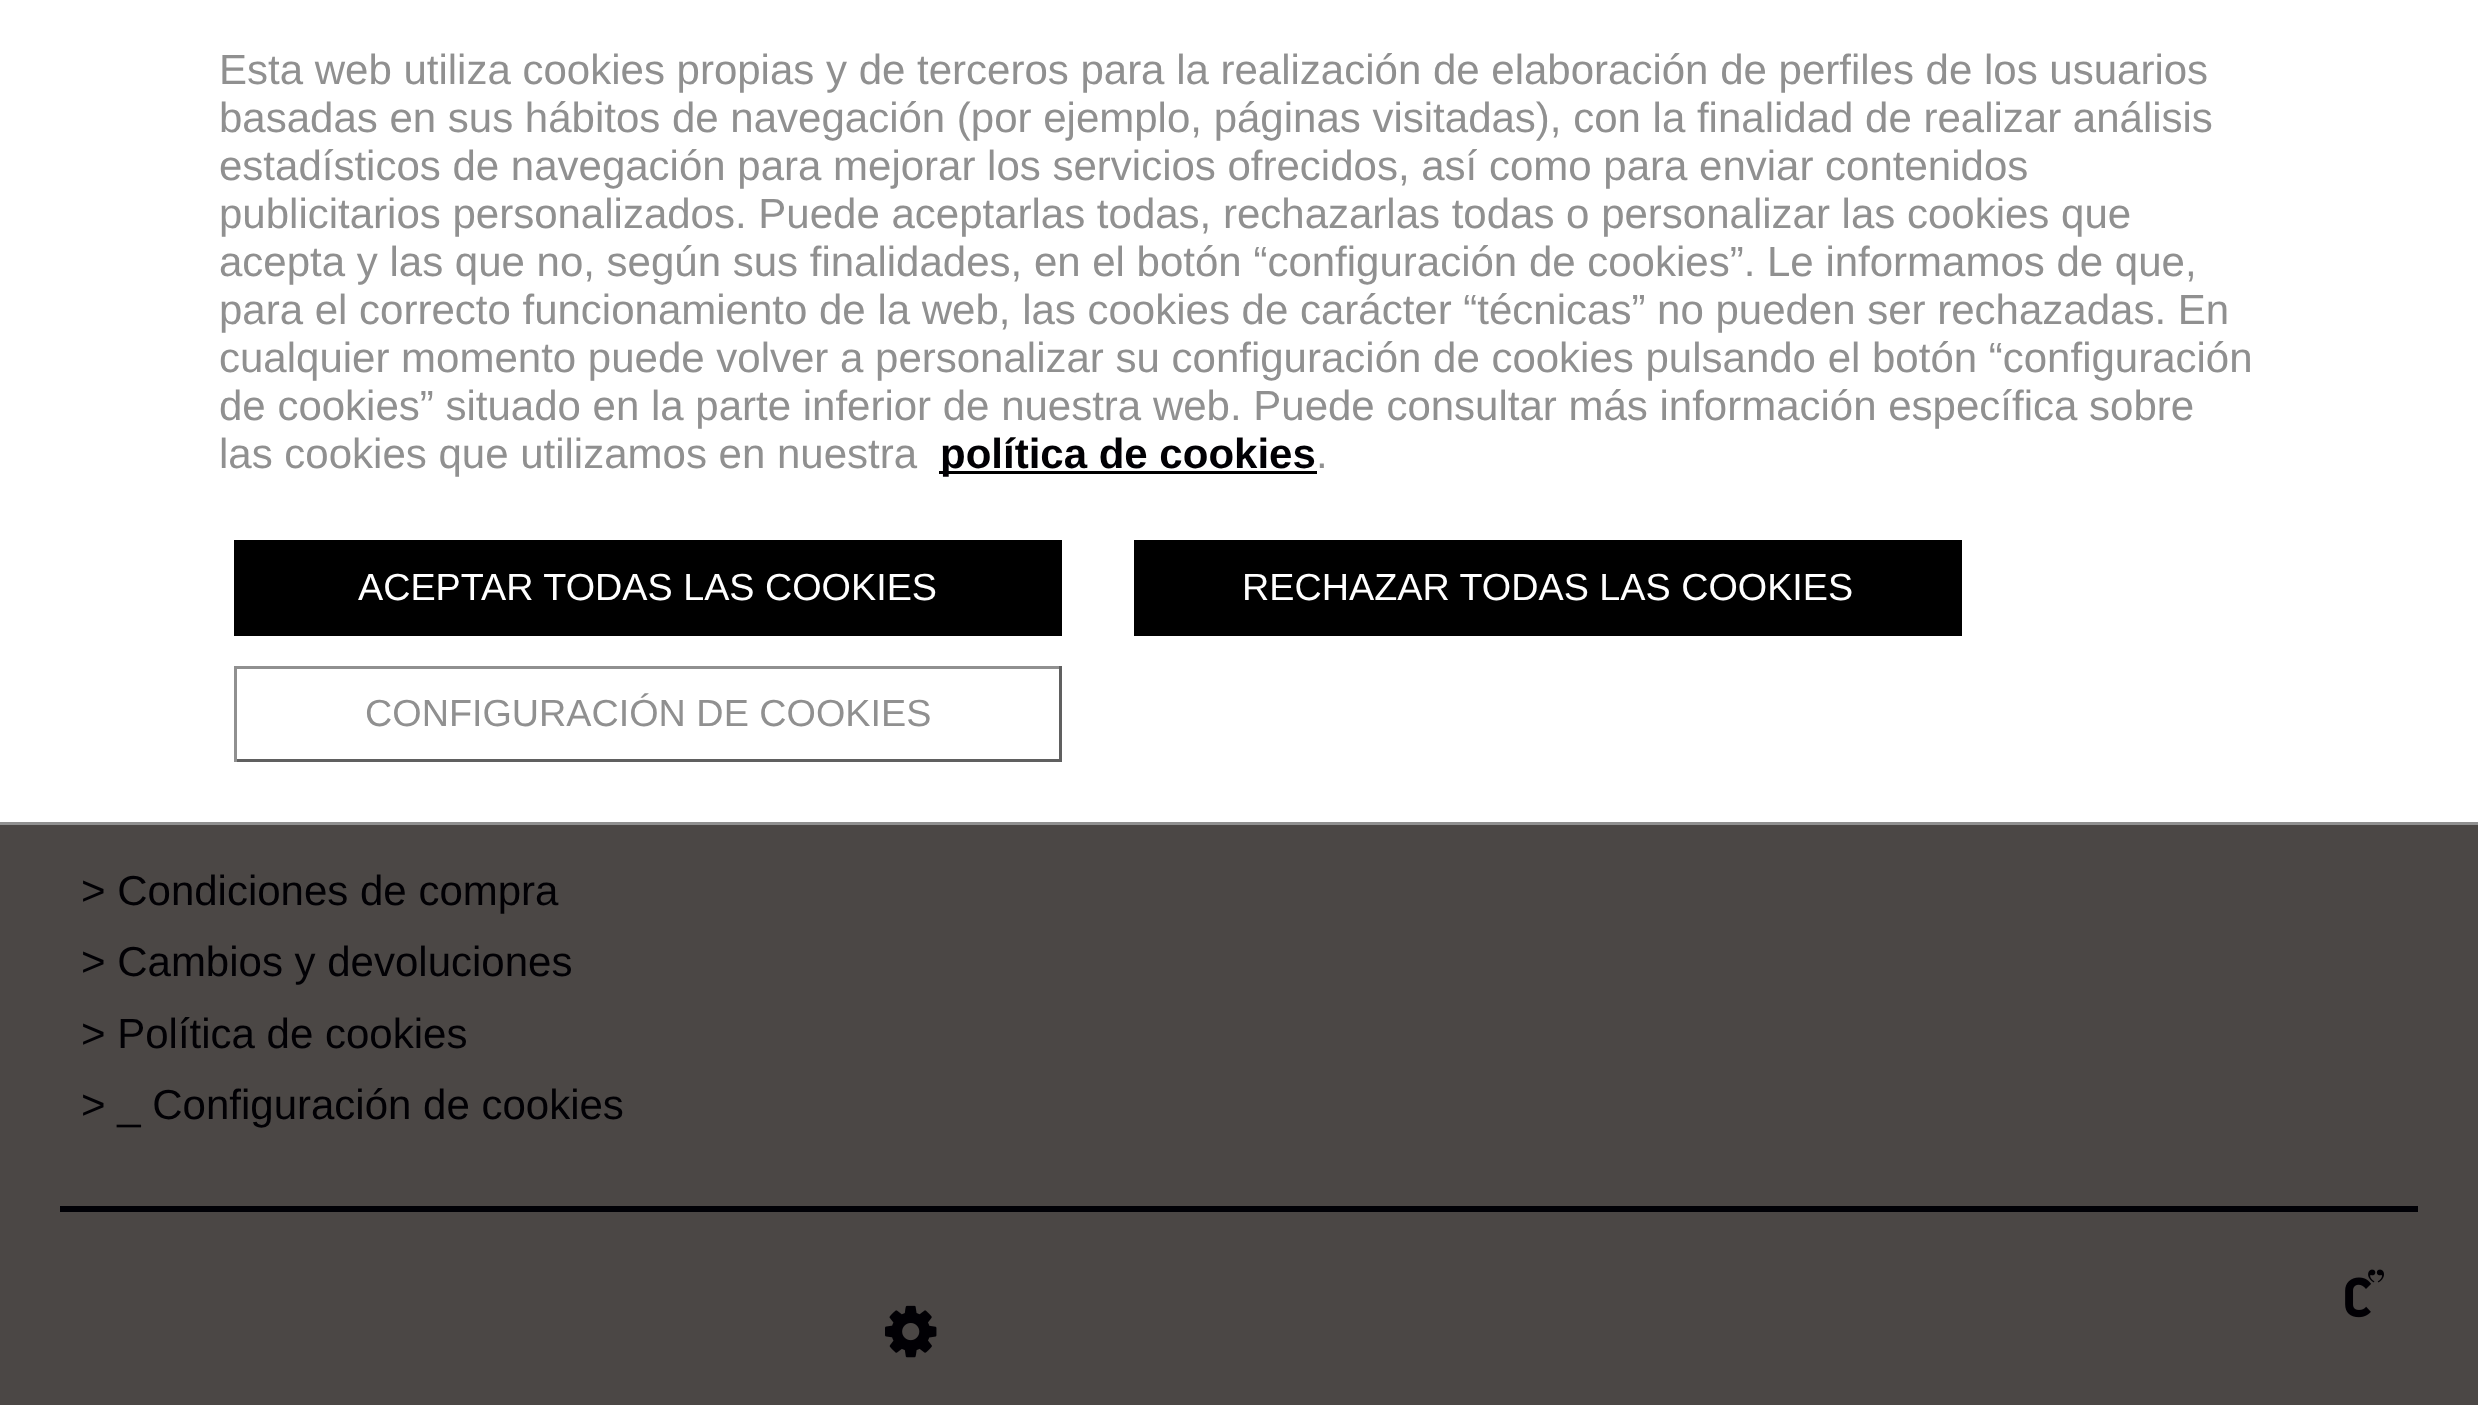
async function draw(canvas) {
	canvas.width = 2478;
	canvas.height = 1405;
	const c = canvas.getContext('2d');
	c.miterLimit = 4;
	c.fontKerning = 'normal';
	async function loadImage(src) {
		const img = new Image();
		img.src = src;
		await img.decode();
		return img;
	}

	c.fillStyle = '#4b4745';
	c.fillRect(0, 0, 2478, 1405);
	c.fillStyle = '#fff';
	c.fillRect(0, 0, 2478, 822);
	c.fillStyle = '#909090';
	c.fillRect(0, 822, 2478, 3);
	c.font = '42px Liberation Sans';
	for (const [text, x, y] of [
		['Esta web utiliza cookies propias y de terceros para la realización de elaboración de perfiles de los usuarios', 219, 84],
		['basadas en sus hábitos de navegación (por ejemplo, páginas visitadas), con la finalidad de realizar análisis', 219, 132],
		['estadísticos de navegación para mejorar los servicios ofrecidos, así como para enviar contenidos', 219, 180],
		['publicitarios personalizados. Puede aceptarlas todas, rechazarlas todas o personalizar las cookies que', 219, 228],
		['acepta y las que no, según sus finalidades, en el botón “configuración de cookies”. Le informamos de que,', 219, 276],
		['para el correcto funcionamiento de la web, las cookies de carácter “técnicas” no pueden ser rechazadas. En', 219, 324],
		['cualquier momento puede volver a personalizar su configuración de cookies pulsando el botón “configuración', 219, 372],
		['de cookies” situado en la parte inferior de nuestra web. Puede consultar más información específica sobre', 219, 420],
		['las cookies que utilizamos en nuestra', 219, 468],
	]) {
		c.fillText(text, x, y);
	}
	c.fillStyle = '#000';
	c.fillRect(939, 471, 378, 3);
	c.font = 'bold 42px Liberation Sans';
	c.fillStyle = '#010004';
	c.fillText('política de cookies', 940, 468);
	c.font = '42px Liberation Sans';
	c.fillStyle = '#909090';
	c.fillText('.', 1316, 468);
	c.fillStyle = '#000';
	c.fillRect(234, 540, 828, 96);
	c.font = '37.75px Liberation Sans';
	c.fillStyle = '#fff';
	c.fillText('ACEPTAR TODAS LAS COOKIES', 358, 600);
	c.fillStyle = '#000';
	c.fillRect(1134, 540, 828, 96);
	c.fillStyle = '#fff';
	c.fillText('RECHAZAR TODAS LAS COOKIES', 1242, 600);
	for (const [x, y, w, h, color] of [
		[234, 666, 828, 3, '#909090'],
		[1059, 666, 3, 96, '#606060'],
		[234, 759, 828, 3, '#606060'],
		[234, 666, 3, 96, '#909090'],
	]) {
		c.fillStyle = color;
		c.fillRect(x, y, w, h);
	}
	c.fillText('CONFIGURACIÓN DE COOKIES', 365, 726);
	c.fillStyle = '#010106';
	c.fillRect(60, 1206, 2358, 6);
	c.font = '42px Liberation Sans';
	c.fillStyle = '#010004';
	for (const [text, x, y] of [
		['> Condiciones de compra', 81, 905],
		['> Cambios y devoluciones', 81, 976],
		['> Política de cookies', 81, 1048],
		['> _ Configuración de cookies', 81, 1119],
	]) {
		c.fillText(text, x, y);
	}
	c.drawImage(await loadImage('img1.png'), 2345, 1269, 39, 49);
	c.drawImage(await loadImage('img2.png'), 885, 1305, 52, 53);
}

draw(document.querySelector('canvas'));
